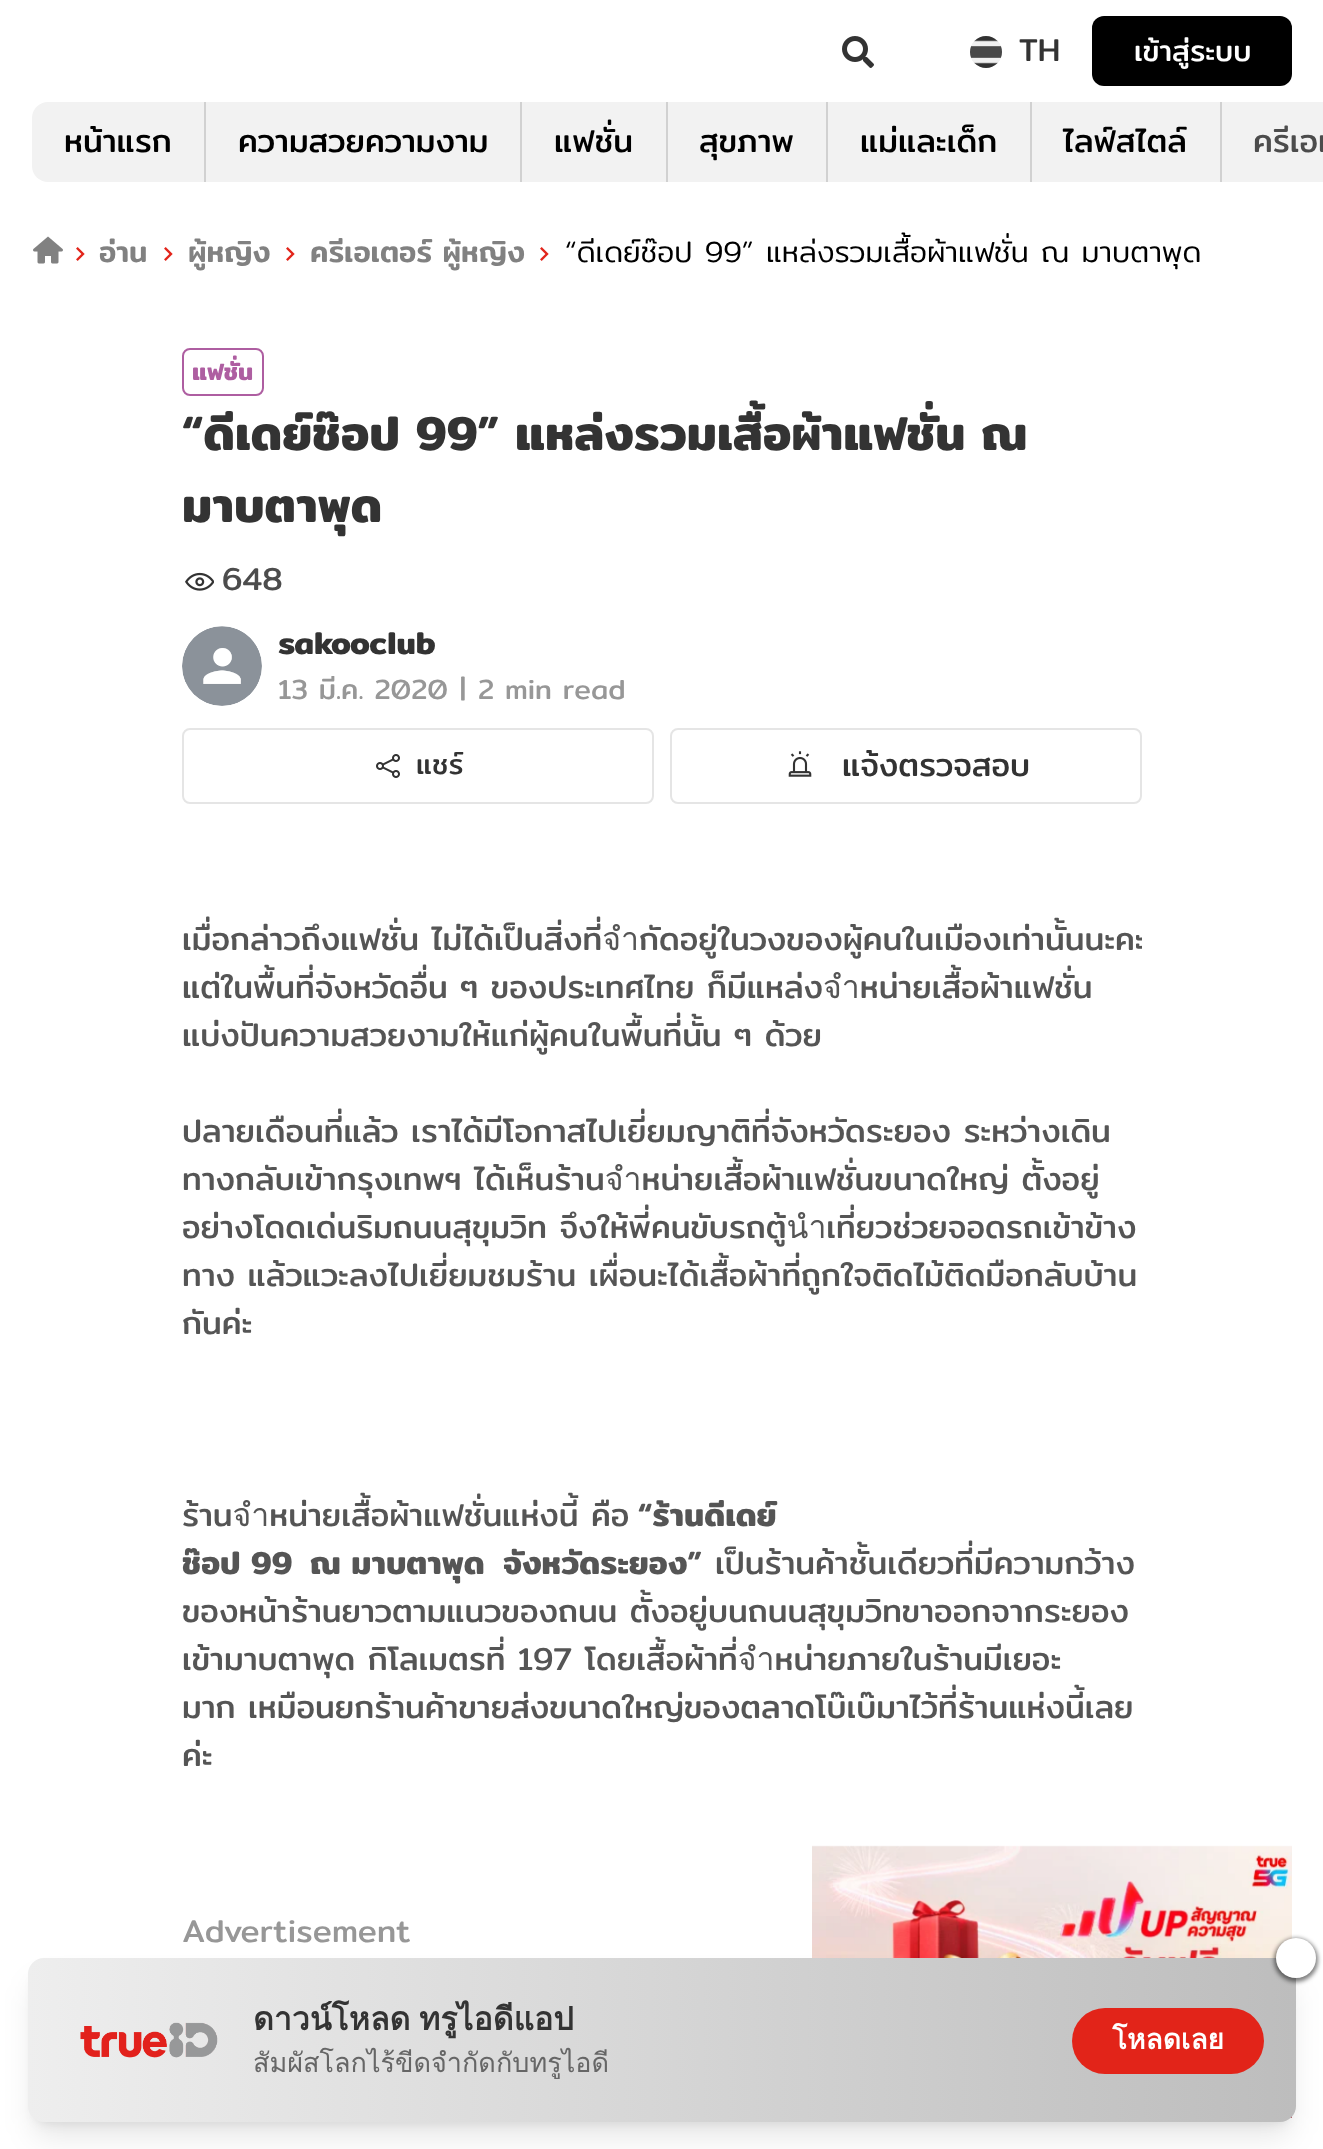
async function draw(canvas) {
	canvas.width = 1323;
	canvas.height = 2149;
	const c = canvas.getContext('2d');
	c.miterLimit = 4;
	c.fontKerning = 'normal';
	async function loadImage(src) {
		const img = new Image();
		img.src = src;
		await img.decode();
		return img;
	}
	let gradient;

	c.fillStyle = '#fff';
	c.fillRect(0, 0, 1323, 2149);
	c.drawImage(await loadImage('img1.png'), 842, 36, 32, 32);
	c.fillStyle = '#efefef';
	c.beginPath();
	c.arc(986, 52, 16, 0, 2 * Math.PI);
	c.fill();
	c.drawImage(await loadImage('img2.png'), 970, 36, 32, 32);
	c.font = '32px Mitr';
	c.fillStyle = '#333';
	c.fillText('TH', 1019, 61);
	c.fillStyle = '#000';
	c.beginPath();
	c.roundRect(1092, 16, 200, 70, 12);
	c.fill();
	c.font = '29px Mitr';
	c.fillStyle = '#fff';
	c.fillText('เข้าสู่ระบบ', 1134, 61);
	c.fillStyle = '#f2f2f2';
	c.beginPath();
	c.roundRect(32, 102, 172, 80, [16, 0, 0, 16]);
	c.fill();
	c.font = '32px Mitr';
	c.fillStyle = '#000';
	c.fillText('หน้าแรก', 64, 152);
	c.fillStyle = '#f2f2f2';
	c.fillRect(206, 102, 314, 80);
	c.fillStyle = '#d1d1d1';
	c.fillRect(204, 102, 2, 80);
	c.fillStyle = '#000';
	c.fillText('ความสวยความงาม', 238, 152);
	c.fillStyle = '#f2f2f2';
	c.fillRect(522, 102, 144, 80);
	c.fillStyle = '#d1d1d1';
	c.fillRect(520, 102, 2, 80);
	c.fillStyle = '#000';
	c.fillText('แฟชั่น', 554, 152);
	c.fillStyle = '#f2f2f2';
	c.fillRect(668, 102, 158, 80);
	c.fillStyle = '#d1d1d1';
	c.fillRect(666, 102, 2, 80);
	c.fillStyle = '#000';
	c.fillText('สุขภาพ', 699, 152);
	c.fillStyle = '#f2f2f2';
	c.fillRect(828, 102, 202, 80);
	c.fillStyle = '#d1d1d1';
	c.fillRect(826, 102, 2, 80);
	c.fillStyle = '#000';
	c.fillText('แม่และเด็ก', 860, 152);
	c.fillStyle = '#f2f2f2';
	c.fillRect(1032, 102, 188, 80);
	c.fillStyle = '#d1d1d1';
	c.fillRect(1030, 102, 2, 80);
	c.fillStyle = '#000';
	c.fillText('ไลฟ์สไตล์', 1063, 152);
	c.fillStyle = '#f2f2f2';
	c.fillRect(1222, 102, 101, 80);
	c.fillStyle = '#d1d1d1';
	c.fillRect(1220, 102, 2, 80);
	c.fillStyle = '#4c4c4c';
	c.fillText('ครีเอเ', 1253, 152);
	c.drawImage(await loadImage('img3.png'), 33, 236, 30, 28);
	c.drawImage(await loadImage('img4.png'), 76, 247, 9, 14);
	c.font = '500 29.4px Mitr';
	c.fillStyle = '#818181';
	c.fillText('อ่าน', 99, 262);
	c.drawImage(await loadImage('img4.png'), 164, 247, 9, 14);
	c.fillText('ผู้หญิง', 188, 262);
	c.drawImage(await loadImage('img4.png'), 286, 247, 9, 14);
	c.fillText('ครีเอเตอร์ ผู้หญิง', 310, 262);
	c.drawImage(await loadImage('img4.png'), 540, 247, 9, 14);
	c.font = '300 29.4px Mitr';
	c.fillStyle = '#000';
	c.fillText('“ดีเดย์ช๊อป 99” แหล่งรวมเสื้อผ้าแฟชั่น ณ มาบตาพุด', 565, 262);
	c.beginPath();
	c.roundRect(183, 349, 80, 46, 7);
	c.strokeStyle = '#ae5ea1';
	c.lineWidth = 2;
	c.stroke();
	c.font = '600 24px Mitr';
	c.fillStyle = '#ae5ea1';
	c.fillText('แฟชั่น', 192, 380);
	c.save();
	c.beginPath();
	c.rect(182, 348, 960, 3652);
	c.clip();
	c.font = '600 48px Mitr';
	c.fillStyle = '#333';
	c.fillText('“ดีเดย์ช๊อป 99” แหล่งรวมเสื้อผ้าแฟชั่น ณ', 182, 450);
	c.restore();
	c.font = '600 48px Mitr';
	c.fillStyle = '#333';
	c.fillText('มาบตาพุด', 182, 522);
	c.drawImage(await loadImage('img5.png'), 185, 572, 29, 19);
	c.font = '32px Mitr';
	c.fillStyle = '#4c4c4c';
	c.fillText('648', 222, 590);
	c.drawImage(await loadImage('img6.png'), 182, 626, 80, 80);
	c.font = '600 32px Mitr';
	c.fillStyle = '#333';
	c.fillText('sakooclub', 278, 654);
	c.font = '28px Mitr';
	c.fillStyle = '#979797';
	for (const [text, x, y] of [
		['13 มี.ค. 2020', 278, 699],
		['|', 460, 698],
		['2 min read', 478, 699],
	]) {
		c.fillText(text, x, y);
	}
	c.beginPath();
	c.roundRect(183, 729, 470, 74, 7);
	c.strokeStyle = '#e5e5e5';
	c.stroke();
	c.drawImage(await loadImage('img7.png'), 376, 754, 24, 24);
	c.fillStyle = '#333';
	c.fillText('แชร์', 416, 774);
	c.beginPath();
	c.roundRect(671, 729, 470, 74, 7);
	c.stroke();
	c.drawImage(await loadImage('img8.png'), 788, 751, 24, 26);
	c.font = '32px Mitr';
	c.fillText('แจ้งตรวจสอบ', 842, 776);
	c.save();
	c.beginPath();
	c.rect(182, 348, 960, 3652);
	c.clip();
	c.fillStyle = '#555';
	c.fillText('เมื่อกล่าวถึงแฟชั่น ไม่ได้เป็นสิ่งที่จำกัดอยู่ในวงของผู้คนในเมืองเท่านั้นนะคะ', 182, 950);
	c.restore();
	c.fillStyle = '#555';
	for (const [text, x, y] of [
		['แต่ในพื้นที่จังหวัดอื่น ๆ ของประเทศไทย ก็มีแหล่งจำหน่ายเสื้อผ้าแฟชั่น', 182, 998],
		['แบ่งปันความสวยงามให้แก่ผู้คนในพื้นที่นั้น ๆ ด้วย', 182, 1046],
		['ปลายเดือนที่แล้ว เราได้มีโอกาสไปเยี่ยมญาติที่จังหวัดระยอง ระหว่างเดิน', 182, 1142],
		['ทางกลับเข้ากรุงเทพฯ ได้เห็นร้านจำหน่ายเสื้อผ้าแฟชั่นขนาดใหญ่ ตั้งอยู่', 182, 1190],
		['อย่างโดดเด่นริมถนนสุขุมวิท จึงให้พี่คนขับรถตู้นำเที่ยวช่วยจอดรถเข้าข้าง', 182, 1238],
		['ทาง แล้วแวะลงไปเยี่ยมชมร้าน เผื่อนะได้เสื้อผ้าที่ถูกใจติดไม้ติดมือกลับบ้าน', 182, 1286],
	]) {
		c.fillText(text, x, y);
	}
	c.save();
	c.beginPath();
	c.rect(182, 348, 960, 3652);
	c.clip();
	c.fillText('กันค่ะ', 182, 1334);
	c.fillText('ร้านจำหน่ายเสื้อผ้าแฟชั่นแห่งนี้ คือ', 182, 1526);
	c.restore();
	c.font = '600 32px Mitr';
	c.fillText('“ร้านดีเดย์', 638, 1526);
	c.save();
	c.beginPath();
	c.rect(182, 348, 960, 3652);
	c.clip();
	c.fillText('ช๊อป 99', 182, 1574);
	c.fillText('ณ มาบตาพุด', 310, 1574);
	c.fillText('จังหวัดระยอง”', 503, 1574);
	c.restore();
	c.font = '32px Mitr';
	c.fillText('เป็นร้านค้าชั้นเดียวที่มีความกว้าง', 715, 1574);
	c.fillText('ของหน้าร้านยาวตามแนวของถนน ตั้งอยู่บนถนนสุขุมวิทขาออกจากระยอง', 182, 1622);
	c.save();
	c.beginPath();
	c.rect(182, 348, 960, 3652);
	c.clip();
	c.fillText('เข้ามาบตาพุด กิโลเมตรที่ 197 โดยเสื้อผ้าที่จำหน่ายภายในร้านมีเยอะ', 182, 1670);
	c.restore();
	c.fillText('มาก เหมือนยกร้านค้าขายส่งขนาดใหญ่ของตลาดโบ๊เบ๊มาไว้ที่ร้านแห่งนี้เลย', 182, 1718);
	c.save();
	c.beginPath();
	c.rect(182, 348, 960, 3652);
	c.clip();
	c.fillText('ค่ะ', 182, 1766);
	c.restore();
	c.fillStyle = '#979797';
	c.fillText('Advertisement', 182, 1942);
	c.drawImage(await loadImage('img9.png'), 812, 1845, 480, 273);
	c.fillStyle = '#0000001a';
	c.filter = 'blur(6px)';
	c.beginPath();
	c.roundRect(36, 1974, 1252, 148, 8);
	c.fill();
	c.filter = 'none';
	c.filter = 'blur(15px)';
	c.beginPath();
	c.roundRect(34, 1984, 1256, 152, 10);
	c.fill();
	c.filter = 'none';
	gradient = c.createLinearGradient(28, 2040, 1296, 2040);
	gradient.addColorStop(0, '#eee');
	gradient.addColorStop(1, '#bdbdbd');
	c.fillStyle = gradient;
	c.beginPath();
	c.roundRect(28, 1958, 1268, 164, 16);
	c.fill();
	c.fillStyle = '#00000080';
	c.filter = 'blur(2px)';
	c.beginPath();
	c.roundRect(1274, 1938, 44, 44, 22);
	c.fill();
	c.filter = 'none';
	c.fillStyle = '#fff';
	c.beginPath();
	c.arc(1296, 1958, 20, 0, 2 * Math.PI);
	c.fill();
	c.drawImage(await loadImage('img10.png'), 80, 2022, 138, 36);
	c.wordSpacing = '-2px';
	c.font = 'bold 32px Loma';
	c.fillStyle = '#333';
	c.fillText('ดาวน์โหลด ทรูไอดีแอป', 253, 2030);
	c.wordSpacing = '0px';
	c.font = '27px Loma';
	c.fillStyle = '#666';
	c.fillText('สัมผัสโลกไร้ขีดจำกัดกับทรูไอดี', 253, 2072);
	c.fillStyle = '#e22419';
	c.beginPath();
	c.roundRect(1072, 2008, 192, 66, 33);
	c.fill();
	c.font = 'bold 28px Loma';
	c.fillStyle = '#fff';
	c.fillText('โหลดเลย', 1112, 2049);
}

draw(document.querySelector('canvas'));
